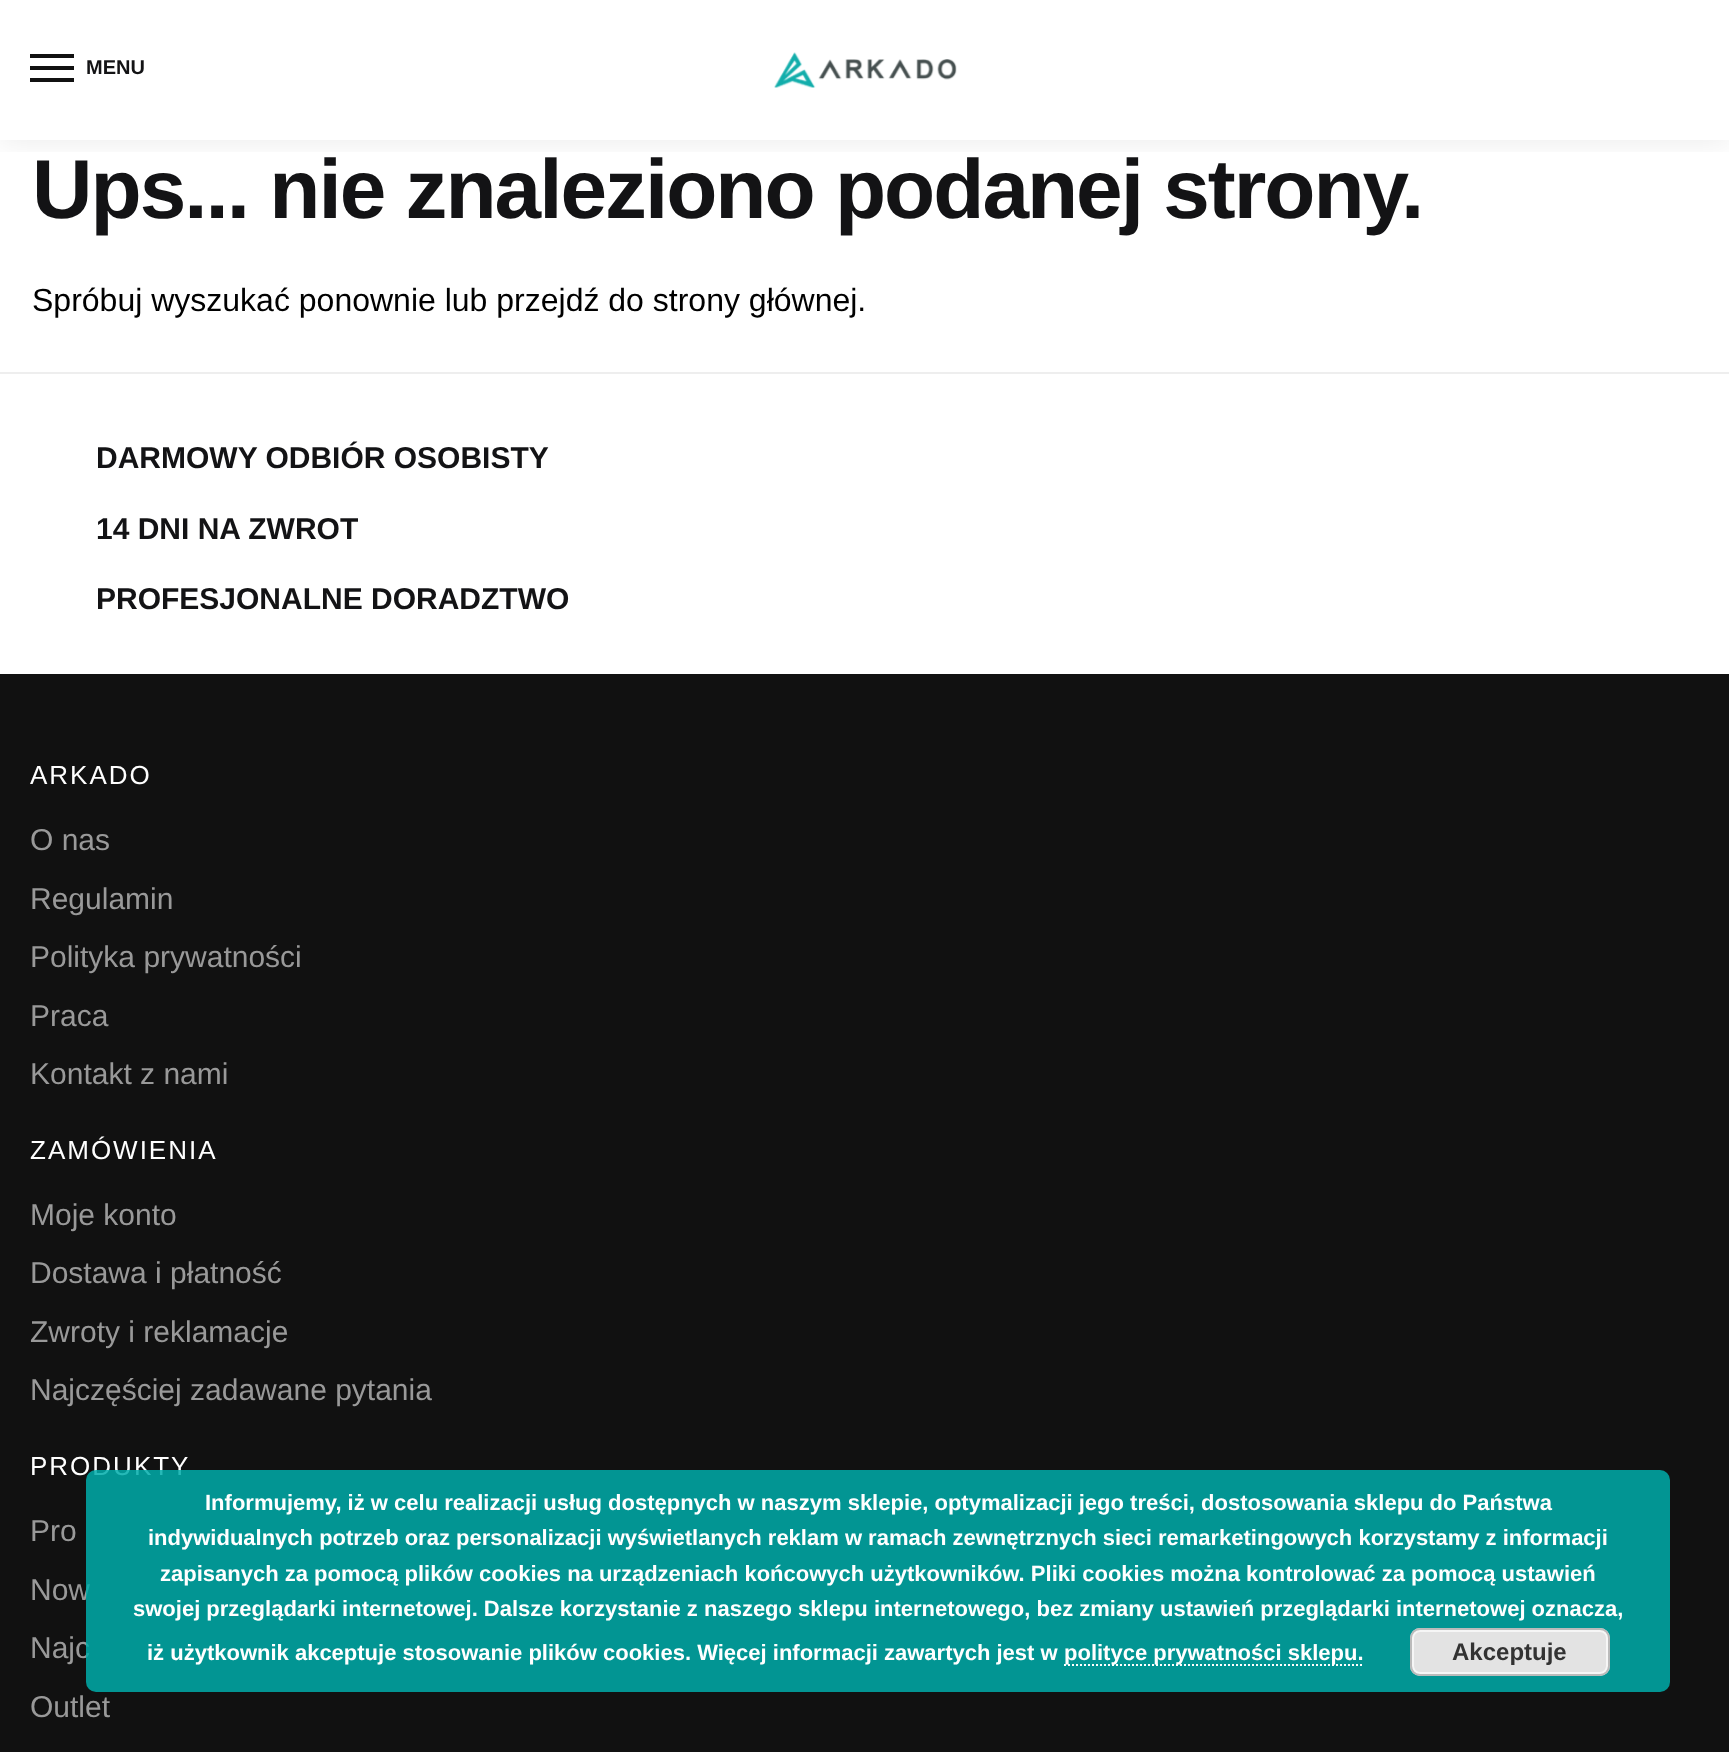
<!DOCTYPE html>
<meta charset="utf-8">
<style>body { margin: 0 } canvas { display: block }</style>
<canvas id="canvas" width="1729" height="1752"></canvas>
<script type="module">
  const canvas = document.getElementById("canvas");
  const ctx = canvas.getContext("2d");
  ctx.miterLimit = 4;
  ctx.fontKerning = "normal";
  async function loadImage(src) {
    const img = new Image();
    img.src = src;
    await img.decode();
    return img;
  }

  ctx.fillStyle = "#ffffff";
  ctx.fillRect(0, 0, 1729, 1752);
  ctx.save();
  ctx.beginPath();
  ctx.rect(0, 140, 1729, 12);
  ctx.clip();
  ctx.fillStyle = "rgba(0, 0, 0, 0.08)";
  ctx.filter = "blur(15px)";
  ctx.beginPath();
  ctx.rect(0, 2, 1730, 140);
  ctx.fill();
  ctx.filter = "none";
  ctx.restore();
  ctx.fillStyle = "#111111";
  ctx.fillRect(30, 54, 44, 4);
  ctx.fillRect(30, 66, 44, 4);
  ctx.font = "bold 20px Liberation Sans";
  ctx.fillStyle = "#131315";
  ctx.fillText("MENU", 86, 74);
  ctx.fillStyle = "#111111";
  ctx.fillRect(30, 78, 44, 4);
  ctx.drawImage(await loadImage("img1.png"), 774, 52, 183, 36);
  ctx.letterSpacing = "-2px";
  ctx.font = "bold 83.75px Liberation Sans";
  ctx.fillStyle = "#131315";
  ctx.fillText("Ups... nie znaleziono podanej strony.", 32, 218);
  ctx.letterSpacing = "0px";
  ctx.font = "32px Liberation Sans";
  ctx.fillStyle = "#000000";
  ctx.fillText("Spróbuj wyszukać ponownie lub przejdź do strony głównej.", 32, 311);
  ctx.fillStyle = "#eeeeee";
  ctx.fillRect(0, 372, 1729, 2);
  ctx.font = "bold 30px Liberation Sans";
  ctx.fillStyle = "#131315";
  ctx.fillText("DARMOWY ODBIÓR OSOBISTY", 96, 468);
  ctx.fillText("14 DNI NA ZWROT", 96, 539);
  ctx.fillText("PROFESJONALNE DORADZTWO", 96, 609);
  ctx.fillStyle = "#111111";
  ctx.fillRect(0, 674, 1729, 1078);
  ctx.letterSpacing = "2px";
  ctx.font = "26px Liberation Sans";
  ctx.fillStyle = "#ffffff";
  ctx.fillText("ARKADO", 30, 784);
  ctx.letterSpacing = "0px";
  ctx.font = "30px Liberation Sans";
  ctx.fillStyle = "#999999";
  ctx.fillText("O nas", 30, 850);
  ctx.fillText("Regulamin", 30, 909);
  ctx.fillText("Polityka prywatności", 30, 967);
  ctx.fillText("Praca", 30, 1026);
  ctx.fillText("Kontakt z nami", 30, 1084);
  ctx.letterSpacing = "2px";
  ctx.font = "26px Liberation Sans";
  ctx.fillStyle = "#ffffff";
  ctx.fillText("ZAMÓWIENIA", 30, 1159);
  ctx.letterSpacing = "0px";
  ctx.font = "30px Liberation Sans";
  ctx.fillStyle = "#999999";
  ctx.fillText("Moje konto", 30, 1225);
  ctx.fillText("Dostawa i płatność", 30, 1283);
  ctx.fillText("Zwroty i reklamacje", 30, 1342);
  ctx.fillText("Najczęściej zadawane pytania", 30, 1400);
  ctx.letterSpacing = "2px";
  ctx.font = "26px Liberation Sans";
  ctx.fillStyle = "#ffffff";
  ctx.fillText("PRODUKTY", 30, 1475);
  ctx.letterSpacing = "0px";
  ctx.font = "30px Liberation Sans";
  ctx.fillStyle = "#999999";
  ctx.fillText("Pro", 30, 1541);
  ctx.fillText("Now", 30, 1600);
  ctx.fillText("Najc", 30, 1658);
  ctx.fillText("Outlet", 30, 1717);
  ctx.fillStyle = "rgba(0, 173, 170, 0.85)";
  ctx.beginPath();
  ctx.roundRect(86, 1470, 1584, 222, 10);
  ctx.fill();
  ctx.font = "bold 22px Liberation Sans";
  ctx.fillStyle = "#ffffff";
  ctx.fillText("Informujemy, iż w celu realizacji usług dostępnych w naszym sklepie, optymalizacji jego treści, dostosowania sklepu do Państwa", 205, 1510);
  ctx.fillText("indywidualnych potrzeb oraz personalizacji wyświetlanych reklam w ramach zewnętrznych sieci remarketingowych korzystamy z informacji", 148, 1545);
  ctx.fillText("zapisanych za pomocą plików cookies na urządzeniach końcowych użytkowników. Pliki cookies można kontrolować za pomocą ustawień", 160, 1581);
  ctx.fillText("swojej przeglądarki internetowej. Dalsze korzystanie z naszego sklepu internetowego, bez zmiany ustawień przeglądarki internetowej oznacza,", 133, 1616);
  ctx.fillText("iż użytkownik akceptuje stosowanie plików cookies. Więcej informacji zawartych jest w", 147, 1660);
  ctx.beginPath();
  ctx.moveTo(1064, 1665);
  ctx.lineTo(1364, 1665);
  ctx.strokeStyle = "#ffffff";
  ctx.lineWidth = 2;
  ctx.setLineDash([2, 2]);
  ctx.stroke();
  ctx.fillText("polityce prywatności sklepu.", 1064, 1660);
  ctx.fillStyle = "#e3e3e3";
  ctx.beginPath();
  ctx.roundRect(1410, 1628, 200, 48, 10);
  ctx.fill();
  ctx.beginPath();
  ctx.roundRect(1413, 1631, 194, 42, 7);
  ctx.strokeStyle = "#f6f6f6";
  ctx.setLineDash([]);
  ctx.stroke();
  ctx.beginPath();
  ctx.roundRect(1411, 1629, 198, 46, 9);
  ctx.strokeStyle = "#bbbbbb";
  ctx.stroke();
  ctx.font = "bold 24px Liberation Sans";
  ctx.fillStyle = "#333333";
  ctx.fillText("Akceptuje", 1452, 1660);
</script>
